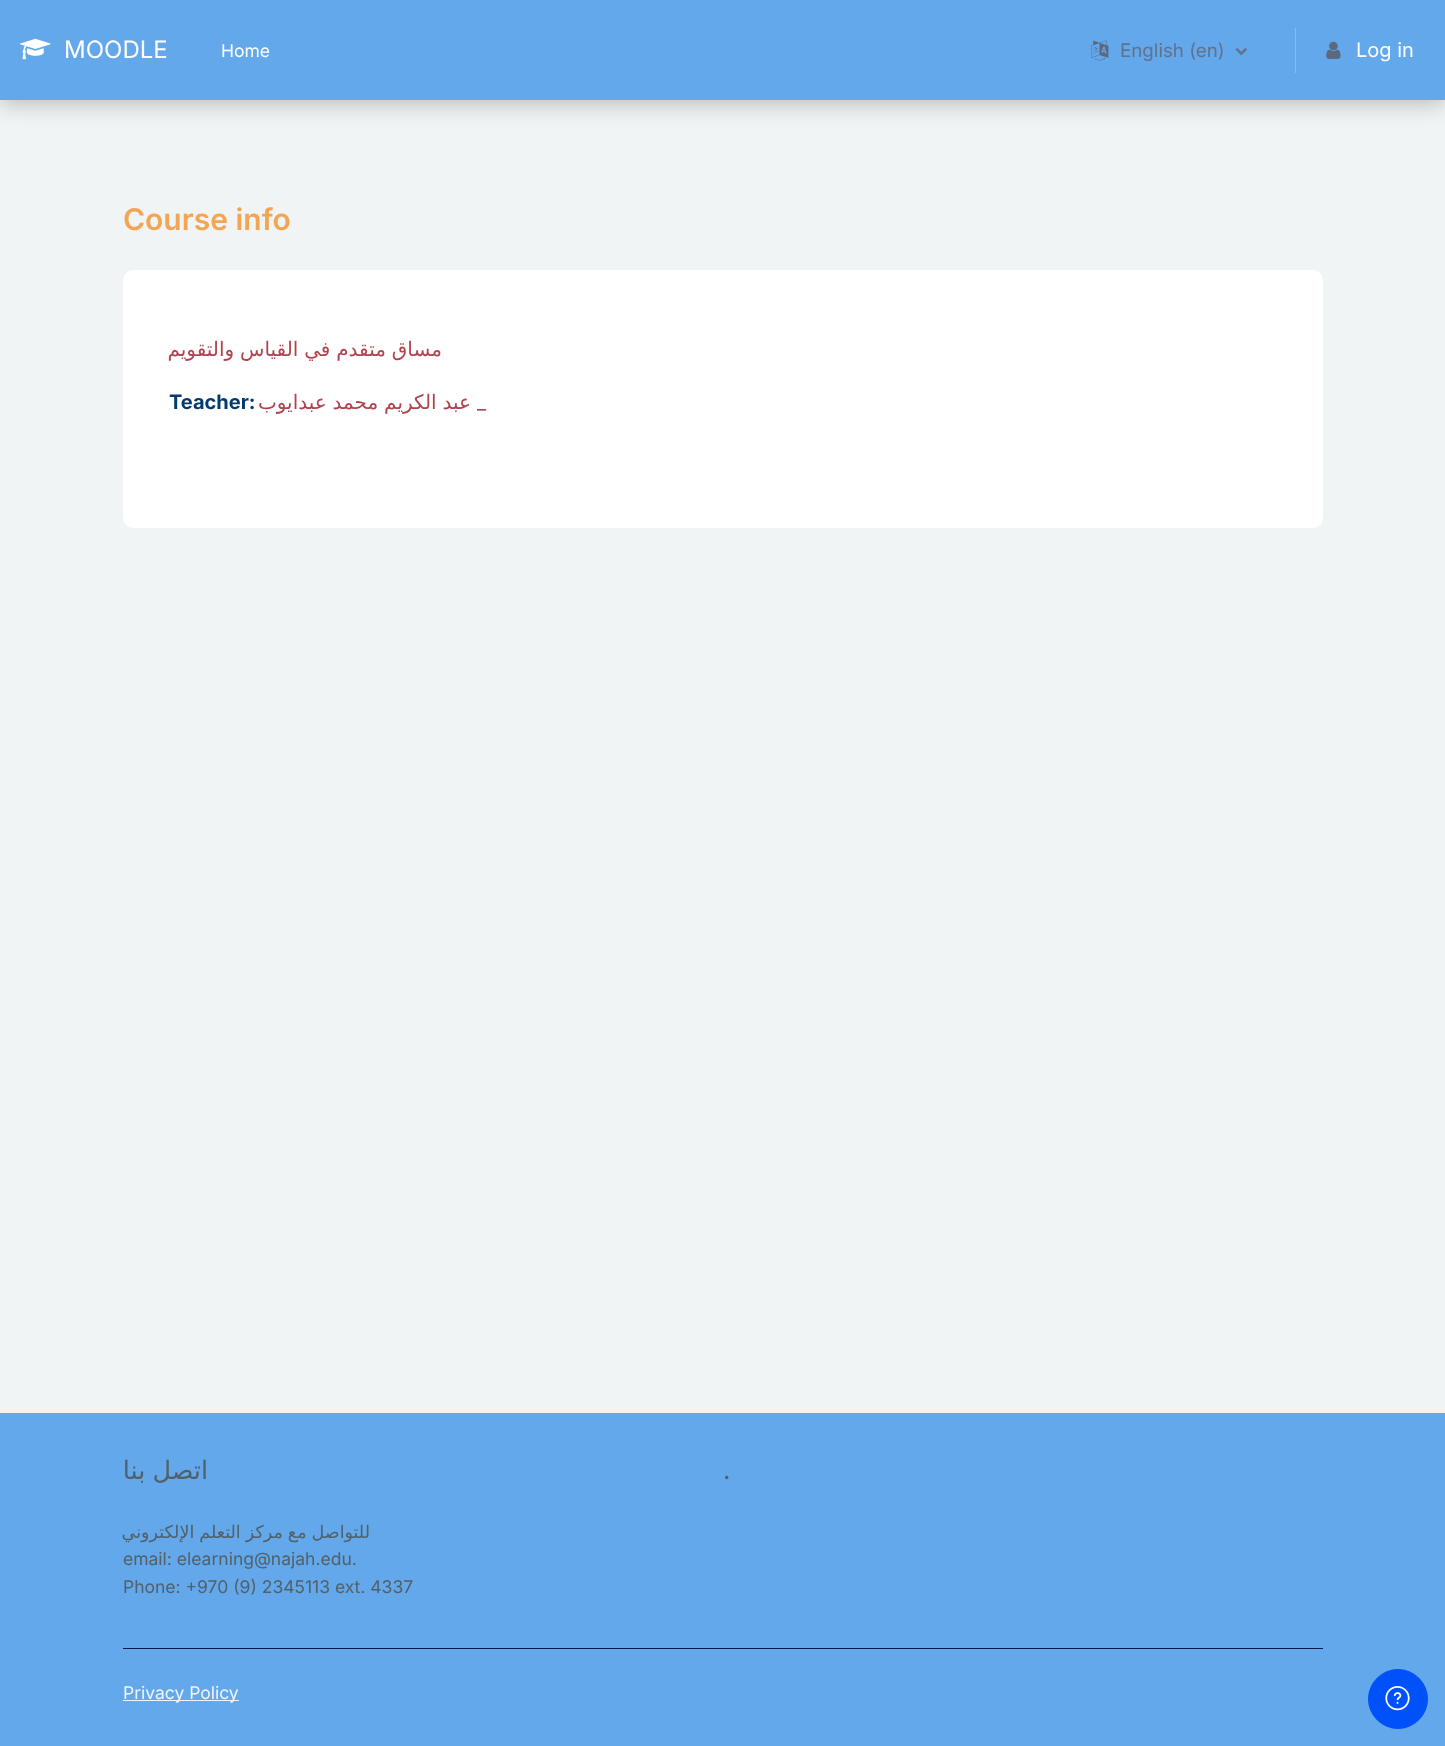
<!DOCTYPE html>
<meta charset="utf-8">
<style>body { margin: 0 } canvas { display: block }</style>
<canvas id="canvas" width="1445" height="1746"></canvas>
<script type="module">
  const canvas = document.getElementById("canvas");
  const ctx = canvas.getContext("2d");
  ctx.miterLimit = 4;
  ctx.fontKerning = "normal";
  async function loadImage(src) {
    const img = new Image();
    img.src = src;
    await img.decode();
    return img;
  }

  ctx.fillStyle = "#62a8ea";
  ctx.fillRect(0, 0, 1445, 1746);
  ctx.fillStyle = "#f1f4f5";
  ctx.fillRect(0, 100, 1445, 1313);
  ctx.fillStyle = "rgba(0, 0, 0, 0.25)";
  ctx.filter = "blur(11px)";
  ctx.beginPath();
  ctx.rect(0, 3, 1445, 100);
  ctx.fill();
  ctx.filter = "none";
  ctx.fillStyle = "#62a8ea";
  ctx.fillRect(0, 0, 1445, 100);
  ctx.drawImage(await loadImage("img1.png"), 20, 38, 31, 22);
  ctx.font = "24px Inter";
  ctx.fillStyle = "#ffffff";
  ctx.fillText("MOODLE", 64, 58);
  ctx.font = "17.5px Inter";
  ctx.fillText("Home", 221, 57);
  ctx.drawImage(await loadImage("img2.png"), 1091, 40, 18, 21);
  ctx.font = "18.75px Inter";
  ctx.fillStyle = "#63718c";
  ctx.fillText("English (en)", 1120, 57);
  ctx.drawImage(await loadImage("img3.png"), 1235, 48, 12, 8);
  ctx.fillStyle = "#9cb6d2";
  ctx.fillRect(1295, 28, 1, 45);
  ctx.drawImage(await loadImage("img4.png"), 1326, 41, 15, 18);
  ctx.font = "20px Inter";
  ctx.fillStyle = "#ffffff";
  ctx.fillText("Log in", 1356, 57);
  ctx.font = "600 30px Inter";
  ctx.fillStyle = "#f2a654";
  ctx.fillText("Course info", 123, 230);
  ctx.fillStyle = "#ffffff";
  ctx.beginPath();
  ctx.roundRect(123, 270, 1200, 258, 10);
  ctx.fill();
  ctx.wordSpacing = "-0.5px";
  ctx.direction = "rtl";
  ctx.font = "20px DejaVu Sans";
  ctx.fillStyle = "#b1434d";
  ctx.fillText("مساق متقدم في القياس والتقويم", 442, 356);
  ctx.wordSpacing = "0px";
  ctx.direction = "ltr";
  ctx.font = "bold 20px Inter";
  ctx.fillStyle = "#043b6e";
  ctx.fillText("Teacher:", 169, 409);
  ctx.wordSpacing = "-0.5px";
  ctx.direction = "rtl";
  ctx.font = "20px DejaVu Sans";
  ctx.fillStyle = "#b1434d";
  ctx.fillText("عبد الكريم محمد عبدايوب", 471, 409);
  ctx.wordSpacing = "0px";
  ctx.direction = "ltr";
  ctx.font = "20px Inter";
  ctx.fillText("_", 477, 409);
  ctx.wordSpacing = "-1px";
  ctx.direction = "rtl";
  ctx.font = "25.5px DejaVu Sans";
  ctx.fillStyle = "#526069";
  ctx.fillText("اتصل بنا", 208, 1479);
  ctx.wordSpacing = "-0.5px";
  ctx.font = "17.5px DejaVu Sans";
  ctx.fillText("للتواصل مع مركز التعلم الإلكتروني", 370, 1538);
  ctx.wordSpacing = "0px";
  ctx.direction = "ltr";
  ctx.font = "17.5px Inter";
  ctx.fillText("email: elearning@najah.edu.", 123, 1565);
  ctx.fillText("Phone: +970 (9) 2345113 ext. 4337", 123, 1593);
  ctx.font = "25.5px Inter";
  ctx.fillText(".", 723, 1479);
  ctx.fillStyle = "#00184b";
  ctx.fillRect(123, 1648, 1200, 1);
  ctx.fillStyle = "#f1f4f5";
  ctx.fillRect(123, 1700, 116, 1);
  ctx.font = "17.5px Inter";
  ctx.fillText("Privacy Policy", 123, 1699);
  ctx.fillStyle = "#0051f9";
  ctx.beginPath();
  ctx.arc(1398, 1699, 29.5, 0, Math.PI * 2);
  ctx.fill();
  ctx.strokeStyle = "#0051f9";
  ctx.stroke();
  ctx.drawImage(await loadImage("img5.png"), 1385, 1686, 25, 25);
</script>
